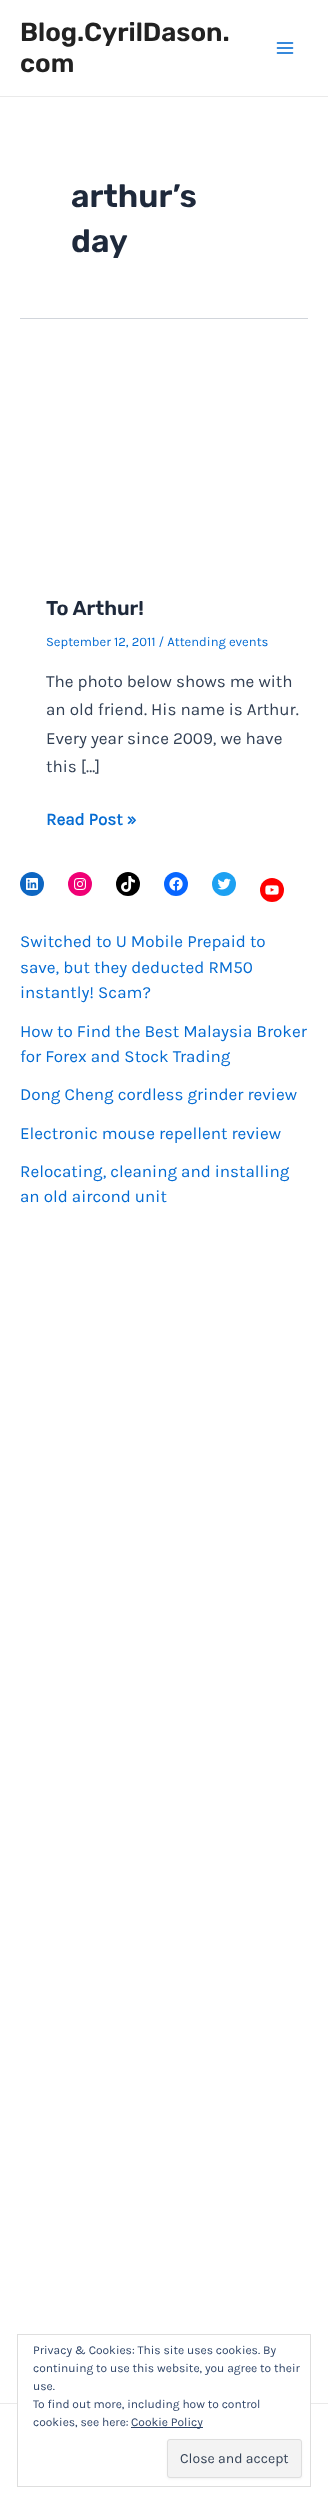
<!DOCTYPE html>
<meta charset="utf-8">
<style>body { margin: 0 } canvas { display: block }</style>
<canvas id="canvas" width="328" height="2504"></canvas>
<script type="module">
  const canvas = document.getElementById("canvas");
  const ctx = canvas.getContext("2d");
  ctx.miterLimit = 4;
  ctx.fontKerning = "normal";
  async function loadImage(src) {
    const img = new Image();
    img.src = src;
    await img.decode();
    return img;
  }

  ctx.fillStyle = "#ffffff";
  ctx.fillRect(0, 0, 328, 2504);
  ctx.fillStyle = "#eaeaea";
  ctx.fillRect(0, 96, 328, 1);
  ctx.font = "600 26px Rubik";
  ctx.fillStyle = "#222222";
  ctx.fillText("Blog.CyrilDason.", 20, 41);
  ctx.fillText("com", 20, 72);
  ctx.drawImage(await loadImage("img1.png"), 276, 42, 18, 12);
  ctx.fillStyle = "#d1d5db";
  ctx.fillRect(20, 318, 288, 1);
  ctx.font = "600 32px Rubik";
  ctx.fillStyle = "#1e293b";
  ctx.fillText("arthur’s", 71, 207);
  ctx.fillText("day", 71, 252);
  ctx.font = "600 20px Rubik";
  ctx.fillText("To Arthur!", 46, 615);
  ctx.font = "13px Karla";
  ctx.fillStyle = "#046bd2";
  ctx.fillText("September 12, 2011 / Attending events", 46, 646);
  ctx.font = "17px Karla";
  ctx.fillStyle = "#334155";
  ctx.fillText("The photo below shows me with", 46, 687);
  ctx.fillText("an old friend. His name is Arthur.", 46, 715);
  ctx.fillText("Every year since 2009, we have", 46, 744);
  ctx.fillText("this […]", 46, 772);
  ctx.font = "bold 17px Karla";
  ctx.fillStyle = "#046bd2";
  ctx.fillText("Read Post »", 46, 825);
  ctx.fillStyle = "#0d66c2";
  ctx.beginPath();
  ctx.arc(32, 884, 12, 0, Math.PI * 2);
  ctx.fill();
  ctx.drawImage(await loadImage("img2.png"), 26, 878, 12, 12);
  ctx.fillStyle = "#f00075";
  ctx.beginPath();
  ctx.arc(80, 884, 12, 0, Math.PI * 2);
  ctx.fill();
  ctx.drawImage(await loadImage("img3.png"), 74, 878, 12, 12);
  ctx.fillStyle = "#000000";
  ctx.beginPath();
  ctx.arc(128, 884, 12, 0, Math.PI * 2);
  ctx.fill();
  ctx.drawImage(await loadImage("img4.png"), 121, 876, 14, 16);
  ctx.fillStyle = "#0866ff";
  ctx.beginPath();
  ctx.arc(176, 884, 12, 0, Math.PI * 2);
  ctx.fill();
  ctx.drawImage(await loadImage("img5.png"), 169, 877, 14, 14);
  ctx.fillStyle = "#1da1f2";
  ctx.beginPath();
  ctx.arc(224, 884, 12, 0, Math.PI * 2);
  ctx.fill();
  ctx.drawImage(await loadImage("img6.png"), 217, 878, 14, 12);
  ctx.fillStyle = "#ff0000";
  ctx.beginPath();
  ctx.arc(272, 890, 12, 0, Math.PI * 2);
  ctx.fill();
  ctx.drawImage(await loadImage("img7.png"), 265, 885, 14, 10);
  ctx.font = "17px Karla";
  ctx.fillStyle = "#046bd2";
  ctx.fillText("Switched to U Mobile Prepaid to", 20, 947);
  ctx.fillText("save, but they deducted RM50", 20, 973);
  ctx.fillText("instantly! Scam?", 20, 998);
  ctx.fillText("How to Find the Best Malaysia Broker", 20, 1037);
  ctx.fillText("for Forex and Stock Trading", 20, 1062);
  ctx.fillText("Dong Cheng cordless grinder review", 20, 1100);
  ctx.fillText("Electronic mouse repellent review", 20, 1139);
  ctx.fillText("Relocating, cleaning and installing", 20, 1177);
  ctx.fillText("an old aircond unit", 20, 1202);
  ctx.fillStyle = "#eaeaea";
  ctx.fillRect(0, 2403, 328, 1);
  ctx.fillStyle = "#ffffff";
  ctx.fillRect(18, 2403, 292, 1);
  ctx.strokeStyle = "#dedede";
  ctx.strokeRect(17.5, 2334.5, 293, 152);
  ctx.font = "12px Karla";
  ctx.fillStyle = "#2e4467";
  ctx.fillText("Privacy & Cookies: This site uses cookies. By", 33, 2354);
  ctx.fillText("continuing to use this website, you agree to their", 33, 2372);
  ctx.fillText("use.", 33, 2390);
  ctx.fillText("To find out more, including how to control", 33, 2408);
  ctx.fillText("cookies, see here:", 33, 2426);
  ctx.fillRect(131, 2427, 72, 1);
  ctx.fillText("Cookie Policy", 131, 2426);
  ctx.fillStyle = "rgba(0, 0, 0, 0.05)";
  ctx.filter = "blur(1px)";
  ctx.beginPath();
  ctx.roundRect(167, 2440, 135, 39, 3);
  ctx.fill();
  ctx.filter = "none";
  ctx.fillStyle = "#f3f3f3";
  ctx.beginPath();
  ctx.roundRect(167.5, 2439.5, 134, 38, 2.5);
  ctx.fill();
  ctx.stroke();
  ctx.font = "14px Karla";
  ctx.fillStyle = "#334155";
  ctx.fillText("Close and accept", 180, 2463);
</script>
